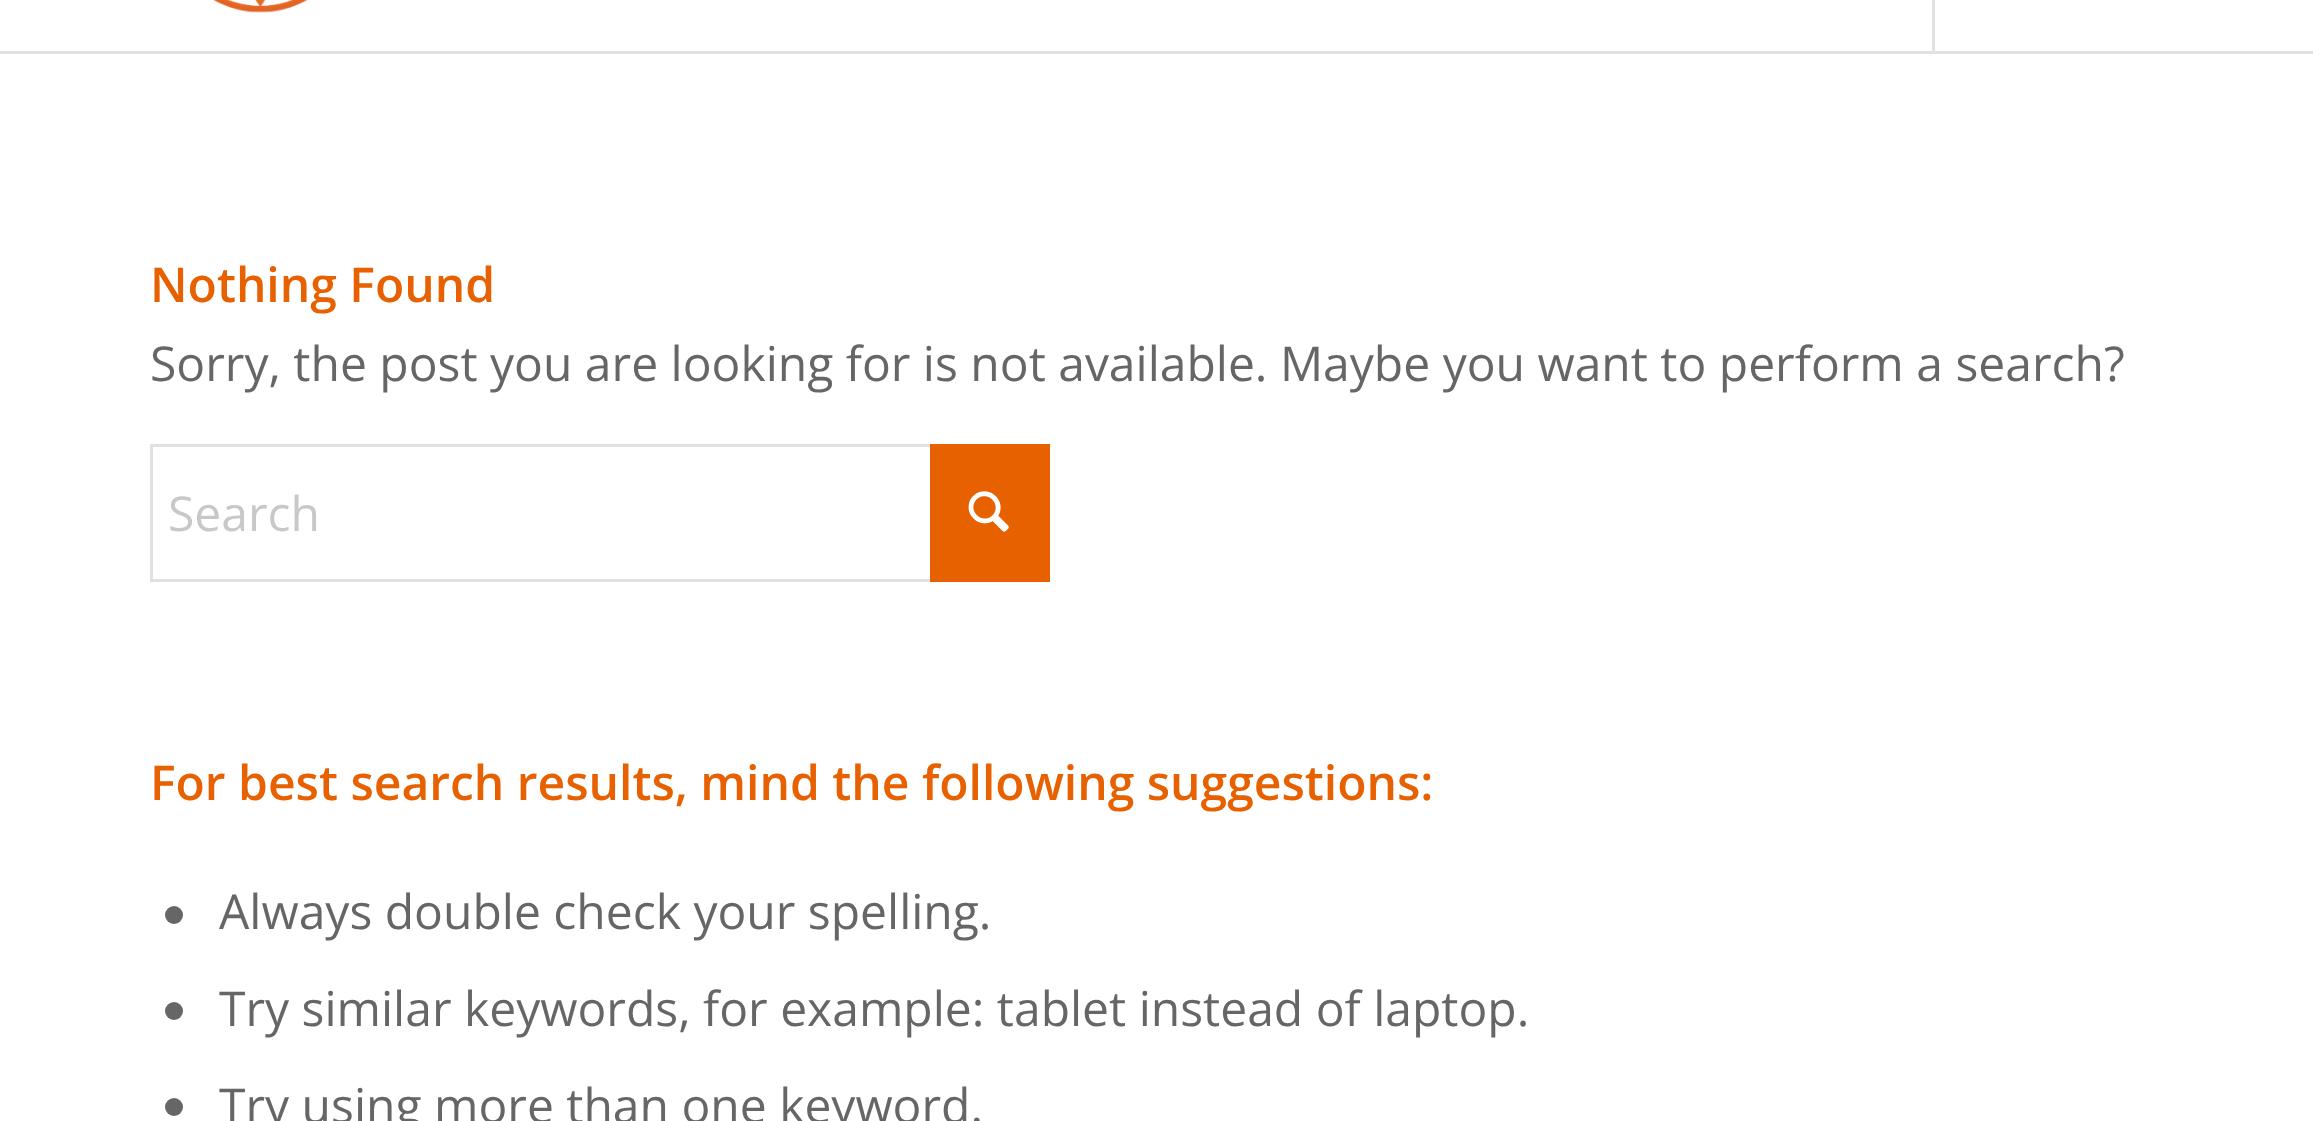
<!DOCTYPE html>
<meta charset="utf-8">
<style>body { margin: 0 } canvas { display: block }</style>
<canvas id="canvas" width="2313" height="1121"></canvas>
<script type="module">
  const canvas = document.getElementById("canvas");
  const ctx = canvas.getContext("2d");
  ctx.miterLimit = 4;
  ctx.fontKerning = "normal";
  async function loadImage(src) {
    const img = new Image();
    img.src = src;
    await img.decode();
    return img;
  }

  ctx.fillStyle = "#ffffff";
  ctx.fillRect(0, 0, 2313, 1121);
  ctx.fillStyle = "#e1e1e1";
  ctx.fillRect(0, 51, 2313, 3);
  ctx.drawImage(await loadImage("img1.png"), 213, 0, 95, 13);
  ctx.fillRect(1932, 0, 3, 51);
  ctx.font = "600 48px Open Sans";
  ctx.fillStyle = "#e86100";
  ctx.fillText("Nothing Found", 150, 302);
  ctx.font = "48px Open Sans";
  ctx.fillStyle = "#666666";
  ctx.fillText("Sorry, the post you are looking for is not available. Maybe you want to perform a search?", 150, 381);
  ctx.strokeStyle = "#e1e1e1";
  ctx.lineWidth = 3;
  ctx.strokeRect(151.5, 445.5, 897, 135);
  ctx.fillStyle = "#e86100";
  ctx.fillRect(930, 444, 120, 138);
  ctx.fillStyle = "#c8c8c8";
  ctx.fillText("Search", 168, 531);
  ctx.drawImage(await loadImage("img2.png"), 968, 491, 41, 41);
  ctx.font = "600 48px Open Sans";
  ctx.fillStyle = "#e86100";
  ctx.fillText("For best search results, mind the following suggestions:", 150, 800);
  ctx.fillStyle = "#666666";
  ctx.beginPath();
  ctx.arc(174, 915, 9, 0, Math.PI * 2);
  ctx.fill();
  ctx.font = "48px Open Sans";
  ctx.fillText("Always double check your spelling.", 219, 929);
  ctx.beginPath();
  ctx.arc(174, 1011, 9, 0, Math.PI * 2);
  ctx.fill();
  ctx.fillText("Try similar keywords, for example: tablet instead of laptop.", 219, 1026);
  ctx.beginPath();
  ctx.arc(174, 1107, 9, 0, Math.PI * 2);
  ctx.fill();
  ctx.fillText("Try using more than one keyword.", 219, 1123);
</script>
